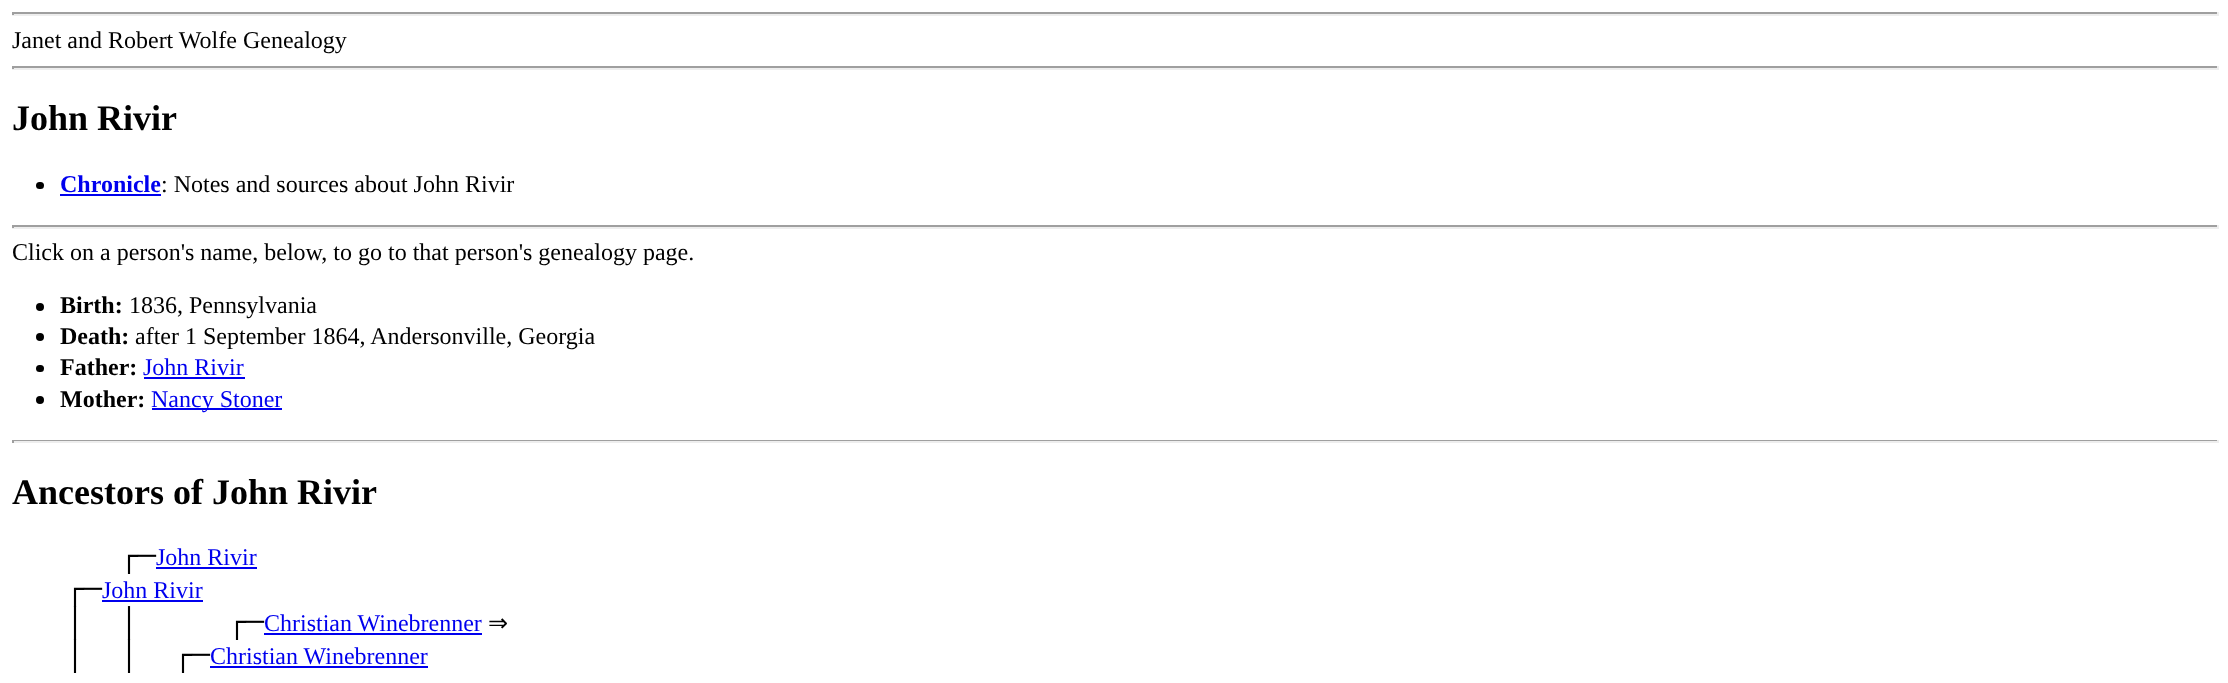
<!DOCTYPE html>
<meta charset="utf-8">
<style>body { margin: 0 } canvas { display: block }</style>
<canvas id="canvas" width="2228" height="683"></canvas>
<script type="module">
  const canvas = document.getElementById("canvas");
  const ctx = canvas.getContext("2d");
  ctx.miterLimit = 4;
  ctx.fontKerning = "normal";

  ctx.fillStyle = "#ffffff";
  ctx.fillRect(0, 0, 2228, 683);
  ctx.fillStyle = "#9f9f9f";
  ctx.fillRect(12, 12, 2207, 2);
  ctx.fillStyle = "#eeeeee";
  ctx.fillRect(2217, 12, 2, 3);
  ctx.fillRect(12, 14, 2207, 2);
  ctx.fillStyle = "#9f9f9f";
  ctx.fillRect(12, 12, 2, 3);
  ctx.font = "24px Liberation Serif";
  ctx.fillStyle = "#000000";
  ctx.fillText("Janet and Robert Wolfe Genealogy", 12, 48);
  ctx.fillStyle = "#9f9f9f";
  ctx.fillRect(12, 66, 2207, 2);
  ctx.fillStyle = "#eeeeee";
  ctx.fillRect(2217, 66, 2, 3);
  ctx.fillRect(12, 68, 2207, 2);
  ctx.fillStyle = "#9f9f9f";
  ctx.fillRect(12, 66, 2, 3);
  ctx.font = "bold 36px Liberation Serif";
  ctx.fillStyle = "#000000";
  ctx.fillText("John Rivir", 12, 130);
  ctx.beginPath();
  ctx.roundRect(36, 182, 8, 7, 3.5);
  ctx.fill();
  ctx.font = "bold 24px Liberation Serif";
  ctx.fillStyle = "#0000ee";
  ctx.fillText("Chronicle", 60, 192);
  ctx.fillRect(60, 194, 101, 2);
  ctx.font = "24px Liberation Serif";
  ctx.fillStyle = "#000000";
  ctx.fillText(": Notes and sources about John Rivir", 161, 192);
  ctx.fillStyle = "#9f9f9f";
  ctx.fillRect(12, 225, 2207, 2);
  ctx.fillStyle = "#eeeeee";
  ctx.fillRect(2217, 225, 2, 3);
  ctx.fillRect(12, 227, 2207, 2);
  ctx.fillStyle = "#9f9f9f";
  ctx.fillRect(12, 225, 2, 3);
  ctx.fillStyle = "#000000";
  ctx.fillText("Click on a person's name, below, to go to that person's genealogy page.", 12, 260);
  ctx.beginPath();
  ctx.arc(40, 307, 4, 0, Math.PI * 2);
  ctx.fill();
  ctx.font = "bold 24px Liberation Serif";
  ctx.fillText("Birth:", 60, 313);
  ctx.font = "24px Liberation Serif";
  ctx.fillText("1836, Pennsylvania", 129, 313);
  ctx.beginPath();
  ctx.arc(40, 337, 4, 0, Math.PI * 2);
  ctx.fill();
  ctx.font = "bold 24px Liberation Serif";
  ctx.fillText("Death:", 60, 344);
  ctx.font = "24px Liberation Serif";
  ctx.fillText("after 1 September 1864, Andersonville, Georgia", 135, 344);
  ctx.beginPath();
  ctx.roundRect(36, 365, 8, 7, 3.5);
  ctx.fill();
  ctx.font = "bold 24px Liberation Serif";
  ctx.fillText("Father:", 60, 375);
  ctx.font = "24px Liberation Serif";
  ctx.fillStyle = "#0000ee";
  ctx.fillText("John Rivir", 143, 375);
  ctx.fillRect(144, 377, 101, 2);
  ctx.fillStyle = "#000000";
  ctx.beginPath();
  ctx.arc(40, 400, 4, 0, Math.PI * 2);
  ctx.fill();
  ctx.font = "bold 24px Liberation Serif";
  ctx.fillText("Mother:", 60, 407);
  ctx.fillStyle = "#0000ee";
  ctx.fillRect(152, 408, 130, 2);
  ctx.font = "24px Liberation Serif";
  ctx.fillText("Nancy Stoner", 151, 407);
  ctx.fillStyle = "#9f9f9f";
  ctx.fillRect(12, 440, 2207, 1);
  ctx.fillStyle = "#eeeeee";
  ctx.fillRect(2217, 440, 2, 3);
  ctx.fillRect(12, 441, 2207, 2);
  ctx.fillStyle = "#9f9f9f";
  ctx.fillRect(12, 440, 2, 3);
  ctx.font = "bold 36px Liberation Serif";
  ctx.fillStyle = "#000000";
  ctx.fillText("Ancestors of John Rivir", 12, 504);
  ctx.font = "30px Liberation Mono";
  ctx.fillText("┌─", 120, 565);
  ctx.font = "24px Liberation Serif";
  ctx.fillStyle = "#0000ee";
  ctx.fillText("John Rivir", 156, 565);
  ctx.fillRect(156, 567, 101, 2);
  ctx.font = "30px Liberation Mono";
  ctx.fillStyle = "#000000";
  ctx.fillText("┌─", 66, 598);
  ctx.font = "24px Liberation Serif";
  ctx.fillStyle = "#0000ee";
  ctx.fillText("John Rivir", 102, 598);
  ctx.fillRect(102, 600, 101, 2);
  ctx.font = "30px Liberation Mono";
  ctx.fillStyle = "#000000";
  ctx.fillText("│  │     ┌─", 66, 631);
  ctx.font = "24px Liberation Serif";
  ctx.fillStyle = "#0000ee";
  ctx.fillText("Christian Winebrenner", 264, 631);
  ctx.fillRect(264, 633, 218, 2);
  ctx.font = "24px DejaVu Sans";
  ctx.fillStyle = "#000000";
  ctx.fillText("⇒", 488, 631);
  ctx.font = "30px Liberation Mono";
  ctx.fillText("│  │  ┌─", 66, 664);
  ctx.font = "24px Liberation Serif";
  ctx.fillStyle = "#0000ee";
  ctx.fillText("Christian Winebrenner", 210, 664);
  ctx.fillRect(210, 666, 218, 2);
</script>
